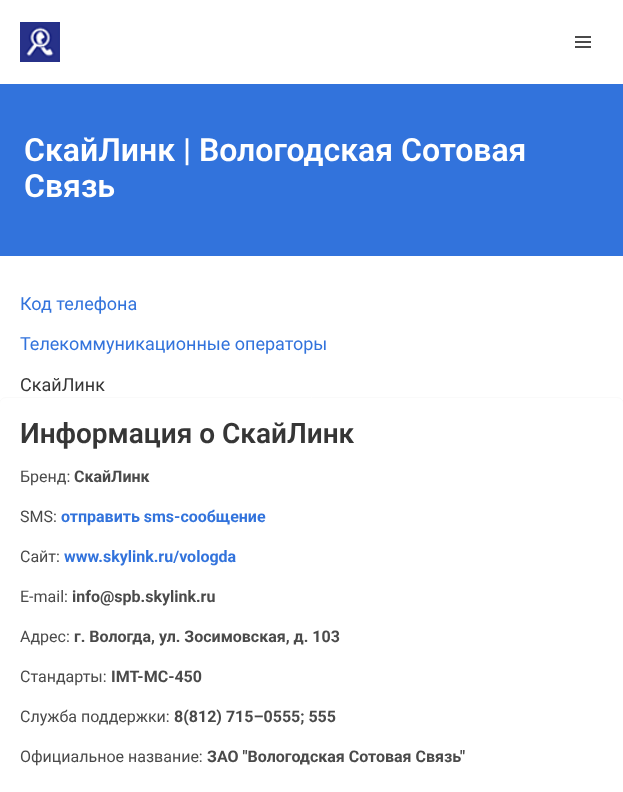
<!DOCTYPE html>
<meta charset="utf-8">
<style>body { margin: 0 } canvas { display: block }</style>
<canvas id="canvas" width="623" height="792"></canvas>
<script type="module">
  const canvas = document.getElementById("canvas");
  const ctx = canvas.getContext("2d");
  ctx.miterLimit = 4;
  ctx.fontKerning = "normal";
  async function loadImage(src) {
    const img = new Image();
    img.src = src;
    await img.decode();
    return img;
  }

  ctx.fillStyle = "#ffffff";
  ctx.fillRect(0, 0, 623, 792);
  ctx.drawImage(await loadImage("img1.png"), 20, 22, 40, 40);
  ctx.fillStyle = "#4a4a4a";
  ctx.fillRect(575, 36, 16, 2);
  ctx.fillRect(575, 41, 16, 2);
  ctx.fillRect(575, 46, 16, 2);
  ctx.fillStyle = "#3273dc";
  ctx.fillRect(0, 84, 623, 172);
  ctx.font = "600 32px Roboto";
  ctx.fillStyle = "#ffffff";
  ctx.fillText("СкайЛинк | Вологодская Сотовая", 24, 161);
  ctx.fillText("Связь", 24, 197);
  ctx.font = "18px Roboto";
  ctx.fillStyle = "#3273dc";
  ctx.fillText("Код телефона", 20, 310);
  ctx.fillText("Телекоммуникационные операторы", 20, 350);
  ctx.fillStyle = "#363636";
  ctx.fillText("СкайЛинк", 20, 391);
  ctx.beginPath();
  ctx.roundRect(-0.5, 397.5, 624, 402, 6.5);
  ctx.strokeStyle = "#fafafa";
  ctx.stroke();
  ctx.font = "600 28px Roboto";
  ctx.fillText("Информация о СкайЛинк", 20, 443);
  ctx.font = "16px Roboto";
  ctx.fillStyle = "#4a4a4a";
  ctx.fillText("Бренд:", 20, 482);
  ctx.font = "bold 16px Roboto";
  ctx.fillText("СкайЛинк", 74, 482);
  ctx.font = "16px Roboto";
  ctx.fillText("SMS:", 20, 522);
  ctx.font = "bold 16px Roboto";
  ctx.fillStyle = "#3273dc";
  ctx.fillText("отправить sms-сообщение", 61, 522);
  ctx.font = "16px Roboto";
  ctx.fillStyle = "#4a4a4a";
  ctx.fillText("Сайт:", 20, 562);
  ctx.font = "bold 16px Roboto";
  ctx.fillStyle = "#3273dc";
  ctx.fillText("www.skylink.ru/vologda", 64, 562);
  ctx.font = "16px Roboto";
  ctx.fillStyle = "#4a4a4a";
  ctx.fillText("E-mail:", 20, 602);
  ctx.font = "bold 16px Roboto";
  ctx.fillText("info@spb.skylink.ru", 72, 602);
  ctx.font = "16px Roboto";
  ctx.fillText("Адрес:", 20, 642);
  ctx.font = "bold 16px Roboto";
  ctx.fillText("г. Вологда, ул. Зосимовская, д. 103", 74, 642);
  ctx.font = "16px Roboto";
  ctx.fillText("Стандарты:", 20, 682);
  ctx.font = "bold 16px Roboto";
  ctx.fillText("IMT-MC-450", 111, 682);
  ctx.font = "16px Roboto";
  ctx.fillText("Служба поддержки:", 20, 722);
  ctx.font = "bold 16px Roboto";
  ctx.fillText("8(812) 715–0555; 555", 174, 722);
  ctx.font = "16px Roboto";
  ctx.fillText("Официальное название:", 20, 762);
  ctx.font = "bold 16px Roboto";
  ctx.fillText("ЗАО \"Вологодская Сотовая Связь\"", 207, 762);
</script>
